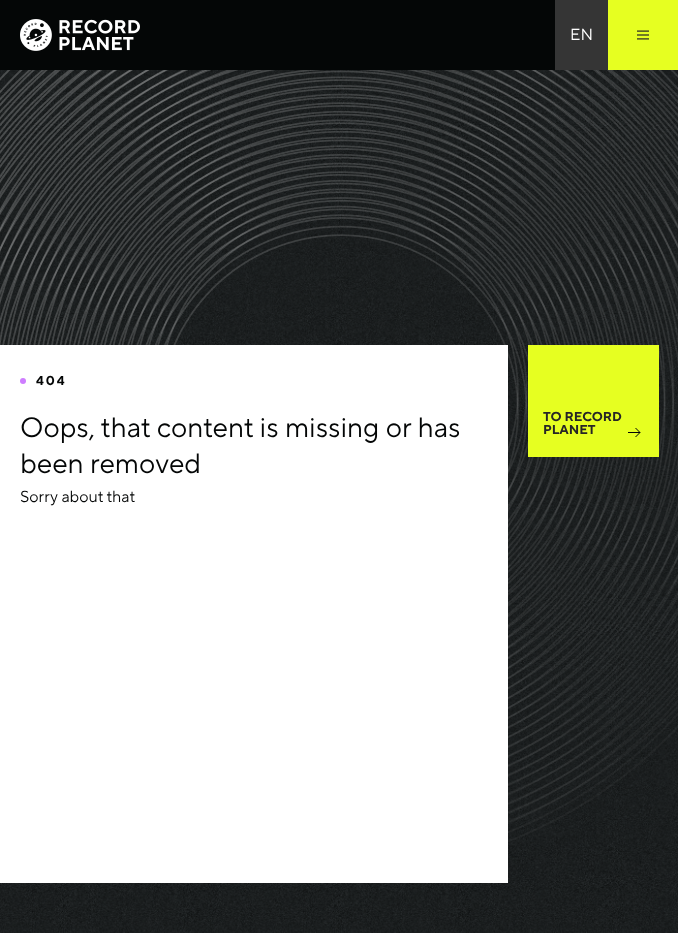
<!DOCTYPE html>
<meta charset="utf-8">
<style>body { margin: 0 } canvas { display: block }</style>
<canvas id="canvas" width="678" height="933"></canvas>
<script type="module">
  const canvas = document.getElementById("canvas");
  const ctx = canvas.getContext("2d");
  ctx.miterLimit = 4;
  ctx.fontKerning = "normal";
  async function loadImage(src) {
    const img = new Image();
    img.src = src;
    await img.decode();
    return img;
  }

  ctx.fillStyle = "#ffffff";
  ctx.fillRect(0, 0, 678, 933);
  ctx.fillStyle = "#040606";
  ctx.fillRect(0, 0, 555, 70);
  ctx.drawImage(await loadImage("img1.png"), 20, 19, 120, 32);
  ctx.fillStyle = "#353535";
  ctx.fillRect(555, 0, 53, 70);
  ctx.font = "16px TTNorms";
  ctx.fillStyle = "#ffffff";
  ctx.fillText("EN", 570, 40);
  ctx.fillStyle = "#e6ff21";
  ctx.fillRect(608, 0, 70, 70);
  ctx.drawImage(await loadImage("img2.png"), 637, 30, 12, 10);
  ctx.drawImage(await loadImage("img3.png"), 0, 70, 678, 863);
  ctx.drawImage(await loadImage("img4.png"), 0, 70, 678, 752);
  ctx.drawImage(await loadImage("img5.png"), 0, 70, 678, 772);
  ctx.fillStyle = "#ffffff";
  ctx.fillRect(0, 345, 508, 538);
  ctx.fillStyle = "#ce7dff";
  ctx.beginPath();
  ctx.arc(23, 381, 3, 0, Math.PI * 2);
  ctx.fill();
  ctx.letterSpacing = "2px";
  ctx.font = "bold 13px TTNorms";
  ctx.fillStyle = "#040606";
  ctx.fillText("404", 36, 385);
  ctx.letterSpacing = "0px";
  ctx.font = "28px TTNorms";
  ctx.fillText("Oops, that content is missing or has", 20, 437);
  ctx.fillText("been removed", 20, 473);
  ctx.font = "16px TTNorms";
  ctx.fillText("Sorry about that", 20, 502);
  ctx.fillStyle = "#e6ff21";
  ctx.fillRect(528, 345, 131, 112);
  ctx.font = "bold 13px TTNorms";
  ctx.fillStyle = "#262626";
  ctx.fillText("TO RECORD", 543, 421);
  ctx.fillText("PLANET", 543, 434);
  ctx.beginPath();
  ctx.moveTo(635.5, 437);
  ctx.lineTo(640, 432.5);
  ctx.lineTo(635.5, 428);
  ctx.moveTo(640, 432.5);
  ctx.lineTo(628, 432.5);
  ctx.strokeStyle = "#040606";
  ctx.stroke();
</script>
